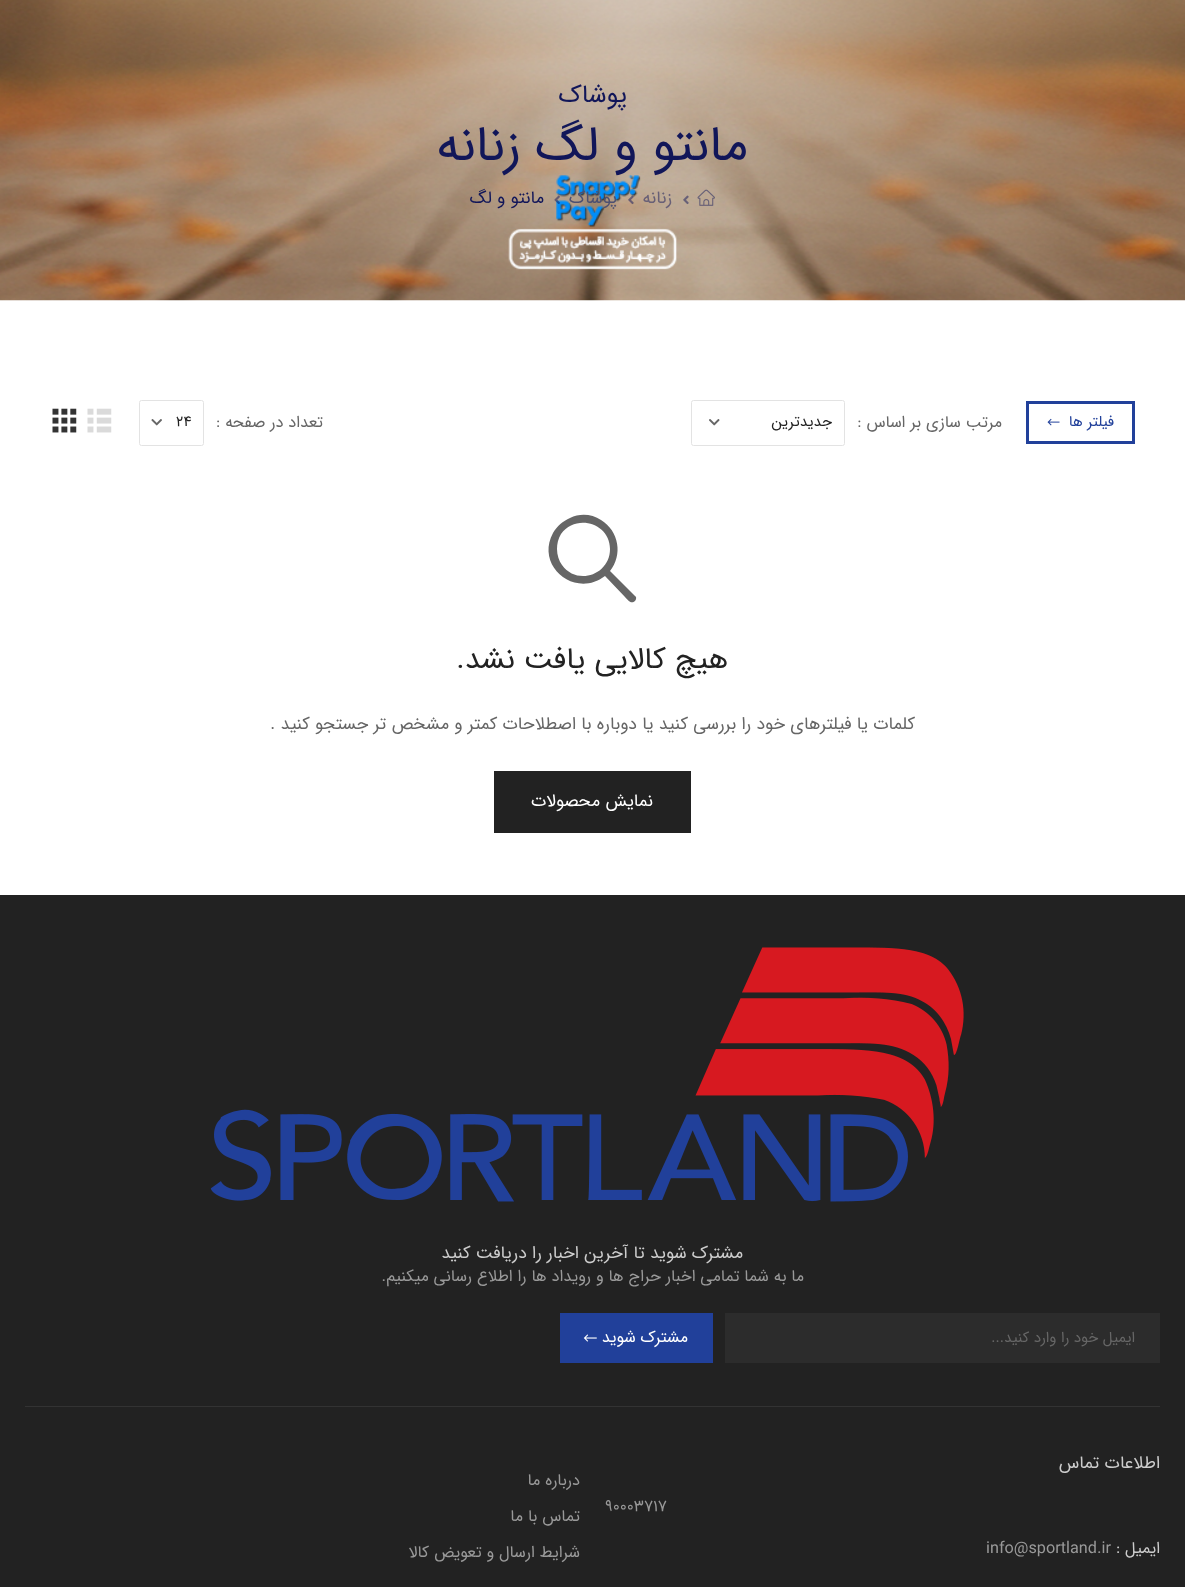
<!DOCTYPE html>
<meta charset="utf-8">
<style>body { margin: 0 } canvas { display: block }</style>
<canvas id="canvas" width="1185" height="1587"></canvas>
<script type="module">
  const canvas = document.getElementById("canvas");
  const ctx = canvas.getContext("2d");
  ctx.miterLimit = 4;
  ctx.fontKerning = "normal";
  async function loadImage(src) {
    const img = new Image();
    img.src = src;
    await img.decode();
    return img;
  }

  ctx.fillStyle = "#ffffff";
  ctx.fillRect(0, 0, 1185, 1587);
  ctx.drawImage(await loadImage("img1.png"), 0, 0, 1185, 301);
  ctx.direction = "rtl";
  ctx.font = "25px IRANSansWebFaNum";
  ctx.fillStyle = "#111659";
  ctx.fillText("پوشاک", 627, 102);
  ctx.font = "50px IRANSansWebFaNum";
  ctx.fillText("مانتو و لگ زنانه", 748, 160);
  ctx.drawImage(await loadImage("img2.png"), 697, 189, 18, 17);
  ctx.drawImage(await loadImage("img3.png"), 683, 195, 6, 10);
  ctx.font = "17.5px IRANSansWebFaNum";
  ctx.fillStyle = "#686076";
  ctx.fillText("زنانه", 672, 203);
  ctx.drawImage(await loadImage("img4.png"), 628, 195, 6, 10);
  ctx.fillStyle = "#4d5071";
  ctx.fillText("پوشاک", 617, 203);
  ctx.drawImage(await loadImage("img5.png"), 554, 195, 6, 9);
  ctx.fillStyle = "#111659";
  ctx.fillText("مانتو و لگ", 544, 203);
  ctx.strokeStyle = "#21409a";
  ctx.lineWidth = 3;
  ctx.strokeRect(1027.5, 402.5, 106, 40);
  ctx.font = "15px IRANSansWebFaNum";
  ctx.fillStyle = "#21409a";
  ctx.fillText("فیلتر ها", 1114, 426);
  ctx.drawImage(await loadImage("img6.png"), 1047, 418, 13, 8);
  ctx.font = "16.25px IRANSansWebFaNum";
  ctx.fillStyle = "#666666";
  ctx.fillText("مرتب سازی بر اساس :", 1002, 427);
  ctx.beginPath();
  ctx.roundRect(691.5, 400.5, 153, 45, 2);
  ctx.strokeStyle = "#e3e3e3";
  ctx.lineWidth = 1;
  ctx.stroke();
  ctx.font = "15px IRANSansWebFaNum";
  ctx.fillStyle = "#222222";
  ctx.fillText("جدیدترین", 832, 426);
  ctx.drawImage(await loadImage("img7.png"), 709, 419, 11, 7);
  ctx.font = "16.25px IRANSansWebFaNum";
  ctx.fillStyle = "#666666";
  ctx.fillText("تعداد در صفحه :", 323, 427);
  ctx.beginPath();
  ctx.roundRect(139.5, 400.5, 64, 45, 2);
  ctx.stroke();
  ctx.direction = "ltr";
  ctx.font = "15px IRANSansWebFaNum";
  ctx.fillStyle = "#222222";
  ctx.fillText("24", 176, 426);
  ctx.drawImage(await loadImage("img8.png"), 151, 419, 11, 7);
  ctx.drawImage(await loadImage("img9.png"), 87, 408, 25, 25);
  ctx.drawImage(await loadImage("img10.png"), 52, 408, 25, 25);
  ctx.fillStyle = "#666666";
  ctx.beginPath();
  ctx.moveTo(635, 596);
  ctx.lineTo(610, 571);
  ctx.bezierCurveTo(623, 555, 619, 531, 601, 520);
  ctx.bezierCurveTo(592, 514, 580, 513, 570, 518);
  ctx.bezierCurveTo(563, 521, 557, 526, 553, 533);
  ctx.bezierCurveTo(535, 566, 575, 599, 605, 576);
  ctx.lineTo(625, 597);
  ctx.bezierCurveTo(627, 599, 631, 605, 635, 601);
  ctx.bezierCurveTo(636, 600, 637, 597, 635, 596);
  ctx.closePath();
  ctx.moveTo(557, 549);
  ctx.bezierCurveTo(557, 544, 558, 539, 561, 534);
  ctx.bezierCurveTo(576, 513, 610, 523, 610, 549);
  ctx.bezierCurveTo(610, 575, 577, 586, 562, 565);
  ctx.bezierCurveTo(559, 561, 557, 555, 557, 549);
  ctx.closePath();
  ctx.fill();
  ctx.direction = "rtl";
  ctx.font = "30px IRANSansWebFaNum";
  ctx.fillStyle = "#222222";
  ctx.fillText("هیچ کالایی یافت نشد.", 728, 668);
  ctx.font = "17.5px IRANSansWebFaNum";
  ctx.fillStyle = "#666666";
  ctx.fillText("کلمات یا فیلترهای خود را بررسی کنید یا دوباره با اصطلاحات کمتر و مشخص تر جستجو کنید .", 915, 729);
  ctx.fillStyle = "#222222";
  ctx.fillRect(494, 771, 197, 62);
  ctx.fillStyle = "#ffffff";
  ctx.fillText("نمایش محصولات", 653, 806);
  ctx.fillStyle = "#222222";
  ctx.fillRect(0, 895, 1185, 692);
  ctx.fillStyle = "#333333";
  ctx.fillRect(25, 1406, 1135, 1);
  ctx.drawImage(await loadImage("img11.png"), 210, 947, 754, 255);
  ctx.fillStyle = "#cccccc";
  ctx.fillText("مشترک شوید تا آخرین اخبار را دریافت کنید", 743, 1258);
  ctx.font = "16.25px IRANSansWebFaNum";
  ctx.fillStyle = "#999999";
  ctx.fillText("ما به شما تمامی اخبار حراج ها و رویداد ها را اطلاع رسانی میکنیم.", 804, 1281);
  ctx.fillStyle = "#2c2c2c";
  ctx.fillRect(725, 1313, 435, 50);
  ctx.font = "15px IRANSansWebFaNum";
  ctx.fillStyle = "#666666";
  ctx.fillText("ایمیل خود را وارد کنید...", 1135, 1342);
  ctx.fillStyle = "#21409a";
  ctx.fillRect(560, 1313, 153, 50);
  ctx.font = "16.25px IRANSansWebFaNum";
  ctx.fillStyle = "#ffffff";
  ctx.fillText("مشترک شوید", 688, 1342);
  ctx.drawImage(await loadImage("img12.png"), 583, 1334, 14, 8);
  ctx.font = "17.5px IRANSansWebFaNum";
  ctx.fillStyle = "#cccccc";
  ctx.fillText("اطلاعات تماس", 1160, 1468);
  ctx.direction = "ltr";
  ctx.font = "16.25px IRANSansWebFaNum";
  ctx.fillStyle = "#999999";
  ctx.fillText("90003717", 605, 1511);
  ctx.direction = "rtl";
  ctx.fillStyle = "#cccccc";
  ctx.fillText("ایمیل :", 1160, 1553);
  ctx.direction = "ltr";
  ctx.fillStyle = "#999999";
  ctx.fillText("info@sportland.ir", 986, 1553);
  ctx.direction = "rtl";
  ctx.fillText("درباره ما", 580, 1485);
  ctx.fillText("تماس با ما", 580, 1521);
  ctx.fillText("شرایط ارسال و تعویض کالا", 580, 1557);
</script>
